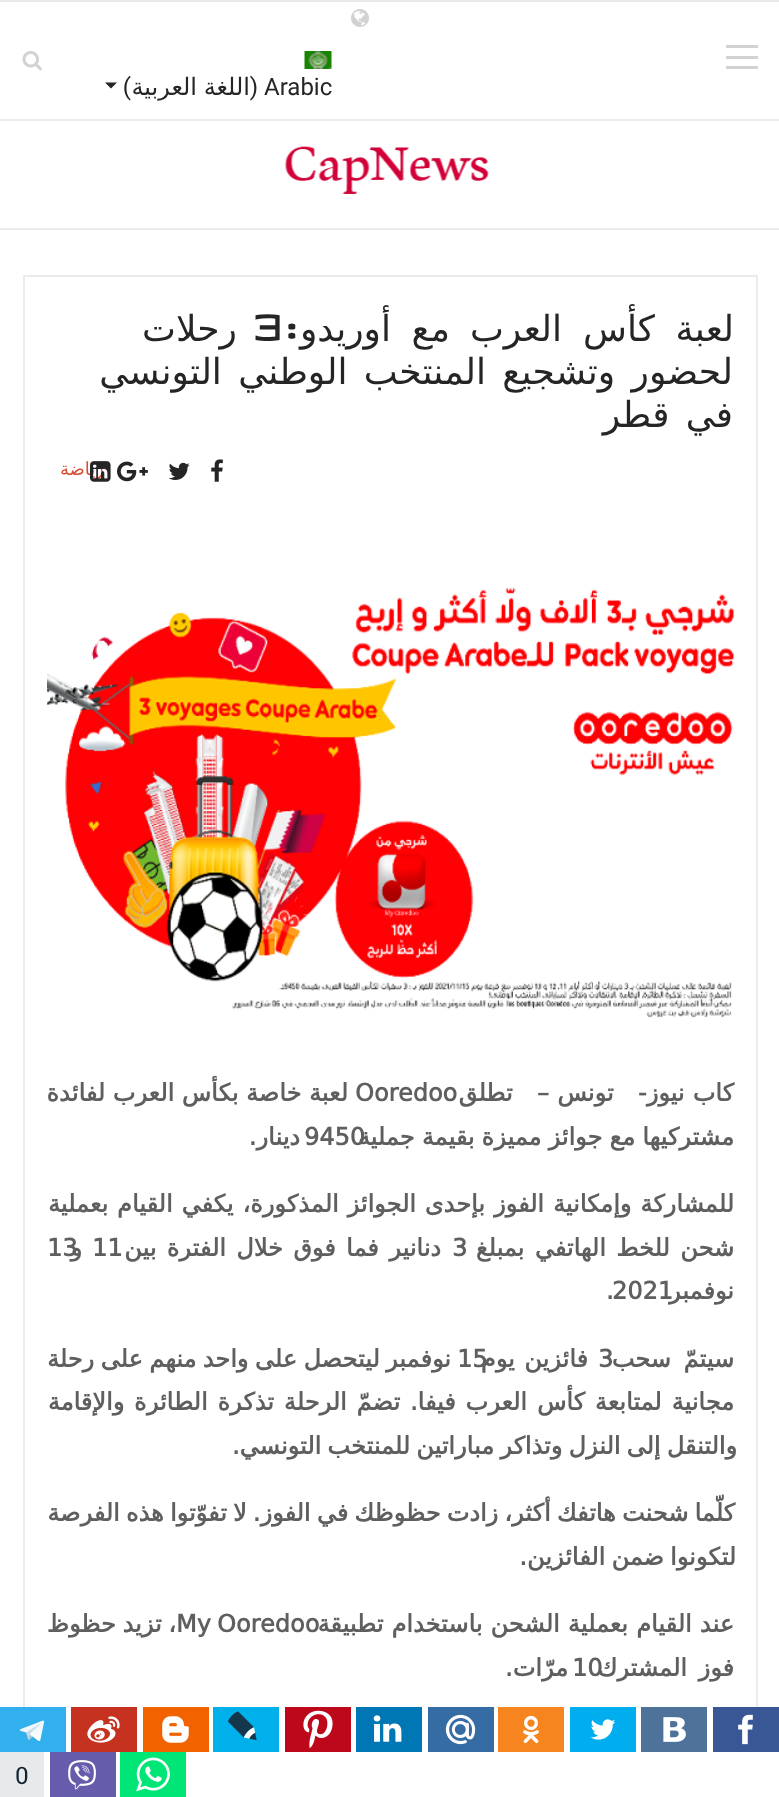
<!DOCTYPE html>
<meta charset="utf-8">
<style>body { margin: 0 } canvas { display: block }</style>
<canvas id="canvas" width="779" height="1797"></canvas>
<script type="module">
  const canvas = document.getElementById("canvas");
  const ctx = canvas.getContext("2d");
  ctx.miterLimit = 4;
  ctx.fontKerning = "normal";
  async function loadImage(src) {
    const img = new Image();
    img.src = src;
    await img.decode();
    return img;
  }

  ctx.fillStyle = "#ffffff";
  ctx.fillRect(0, 0, 779, 1797);
  ctx.fillStyle = "#eaeaea";
  ctx.fillRect(0, 0, 779, 2);
  ctx.fillRect(0, 119, 779, 2);
  ctx.fillStyle = "#d2d2d3";
  ctx.fillRect(726, 45, 32, 3);
  ctx.fillRect(726, 56, 32, 3);
  ctx.fillRect(726, 66, 32, 3);
  ctx.drawImage(await loadImage("img1.png"), 22, 51, 20, 20);
  ctx.drawImage(await loadImage("img2.png"), 351, 9, 18, 18);
  ctx.drawImage(await loadImage("img3.png"), 304, 51, 28, 18);
  ctx.font = "24px Roboto";
  ctx.fillStyle = "#252525";
  ctx.fillText("Arabic", 264, 95);
  ctx.direction = "rtl";
  ctx.fillText("(", 258, 95);
  ctx.wordSpacing = "-1px";
  ctx.font = "24px DejaVu Sans";
  ctx.fillText("اللغة العربية", 250, 95);
  ctx.wordSpacing = "0px";
  ctx.font = "24px Roboto";
  ctx.fillText(")", 131, 95);
  ctx.beginPath();
  ctx.moveTo(105, 82.5);
  ctx.lineTo(117, 82.5);
  ctx.lineTo(111, 88.5);
  ctx.closePath();
  ctx.fill();
  ctx.drawImage(await loadImage("img4.png"), 285, 146, 204, 48);
  ctx.fillStyle = "#ebebeb";
  ctx.fillRect(0, 228, 779, 2);
  ctx.strokeStyle = "#ebebeb";
  ctx.lineWidth = 2;
  ctx.strokeRect(24, 276, 733, 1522);
  ctx.font = "36px DejaVu Sans";
  ctx.fillStyle = "#252525";
  ctx.fillText("لعبة", 734, 341);
  ctx.fillText("كأس", 655, 341);
  ctx.fillText("العرب", 562, 341);
  ctx.fillText("مع", 450, 341);
  ctx.fillText("أوريدو", 391, 341);
  ctx.font = "36px Revalia";
  ctx.fillText(":", 300, 341);
  ctx.direction = "ltr";
  ctx.fillText("3", 253, 341);
  ctx.direction = "rtl";
  ctx.font = "36px DejaVu Sans";
  ctx.fillText("رحلات", 237, 341);
  ctx.wordSpacing = "5px";
  ctx.fillText("لحضور وتشجيع المنتخب الوطني التونسي", 733, 384);
  ctx.fillText("في قطر", 733, 427);
  ctx.drawImage(await loadImage("img5.png"), 211, 459, 12, 23);
  ctx.drawImage(await loadImage("img6.png"), 168, 462, 22, 18);
  ctx.drawImage(await loadImage("img7.png"), 117, 461, 31, 21);
  ctx.letterSpacing = "2.5px";
  ctx.wordSpacing = "0px";
  ctx.font = "18px DejaVu Sans";
  ctx.fillStyle = "#d94d30";
  ctx.fillText("رياضة", 104, 475);
  ctx.drawImage(await loadImage("img8.png"), 90, 461, 21, 21);
  ctx.drawImage(await loadImage("img9.png"), 47, 587, 687, 431);
  ctx.letterSpacing = "0px";
  ctx.wordSpacing = "0.5px";
  ctx.font = "bold 24px DejaVu Sans";
  ctx.fillStyle = "#5f5f5f";
  ctx.fillText("كاب نيوز-   تونس –   تطلق", 734, 1101);
  ctx.wordSpacing = "0px";
  ctx.direction = "ltr";
  ctx.fillText("Ooredoo", 355, 1101);
  ctx.direction = "rtl";
  ctx.fillText("لعبة خاصة بكأس العرب لفائدة", 348, 1101);
  ctx.direction = "ltr";
  ctx.fillText("9450", 304, 1145);
  ctx.wordSpacing = "-0.5px";
  ctx.direction = "rtl";
  ctx.fillText("مشتركيها مع جوائز مميزة بقيمة جملية", 734, 1145);
  ctx.wordSpacing = "0px";
  ctx.fillText("دينار.", 300, 1145);
  ctx.wordSpacing = "1.25px";
  ctx.fillText("للمشاركة وإمكانية الفوز بإحدى الجوائز المذكورة، يكفي القيام بعملية", 734, 1212);
  ctx.wordSpacing = "2.75px";
  ctx.fillText("شحن للخط الهاتفي بمبلغ", 734, 1256);
  ctx.wordSpacing = "0px";
  ctx.direction = "ltr";
  ctx.fillText("3", 452, 1256);
  ctx.wordSpacing = "2.75px";
  ctx.direction = "rtl";
  ctx.fillText("دنانير فما فوق خلال الفترة بين", 441, 1256);
  ctx.wordSpacing = "0px";
  ctx.direction = "ltr";
  ctx.fillText("11", 92, 1256);
  ctx.fillText("13", 47, 1256);
  ctx.direction = "rtl";
  ctx.fillText("و", 82, 1256);
  ctx.direction = "ltr";
  ctx.fillText("2021", 612, 1299);
  ctx.direction = "rtl";
  ctx.fillText("نوفمبر", 734, 1299);
  ctx.direction = "ltr";
  ctx.fillText(".", 606, 1299);
  ctx.wordSpacing = "5px";
  ctx.direction = "rtl";
  ctx.fillText("سيتمّ سحب", 734, 1367);
  ctx.wordSpacing = "0px";
  ctx.direction = "ltr";
  ctx.fillText("3", 598, 1367);
  ctx.fillText("15", 457, 1367);
  ctx.wordSpacing = "2px";
  ctx.direction = "rtl";
  ctx.fillText("فائزين يوم", 588, 1367);
  ctx.wordSpacing = "-1.25px";
  ctx.fillText("نوفمبر ليتحصل على واحد منهم على رحلة", 451, 1367);
  ctx.wordSpacing = "2.25px";
  ctx.fillText("مجانية لمتابعة كأس العرب فيفا. تضمّ الرحلة تذكرة الطائرة والإقامة", 734, 1410);
  ctx.wordSpacing = "-1.5px";
  ctx.fillText("والتنقل إلى النزل وتذاكر مباراتين للمنتخب التونسي.", 737, 1454);
  ctx.fillText("كلّما شحنت هاتفك أكثر، زادت حظوظك في الفوز. لا تفوّتوا هذه الفرصة", 735, 1521);
  ctx.fillText("لتكونوا ضمن الفائزين.", 736, 1565);
  ctx.direction = "ltr";
  ctx.fillText("My Ooredoo", 176, 1632);
  ctx.wordSpacing = "0.5px";
  ctx.direction = "rtl";
  ctx.fillText("عند القيام بعملية الشحن باستخدام تطبيقة", 734, 1632);
  ctx.wordSpacing = "-1px";
  ctx.fillText("، تزيد حظوظ", 176, 1632);
  ctx.wordSpacing = "0px";
  ctx.direction = "ltr";
  ctx.fillText("10", 572, 1676);
  ctx.wordSpacing = "4px";
  ctx.direction = "rtl";
  ctx.fillText("فوز المشترك", 734, 1676);
  ctx.wordSpacing = "0px";
  ctx.fillText("مرّات.", 568, 1676);
  ctx.fillStyle = "#ffffff";
  ctx.fillRect(756, 1707, 2, 90);
  ctx.fillStyle = "#3a5795";
  ctx.fillRect(713, 1707, 66, 45);
  ctx.drawImage(await loadImage("img10.png"), 738, 1714, 15, 31);
  ctx.fillStyle = "#4e7299";
  ctx.fillRect(641, 1707, 66, 45);
  ctx.drawImage(await loadImage("img11.png"), 663, 1717, 23, 25);
  ctx.fillStyle = "#00aeef";
  ctx.fillRect(570, 1707, 66, 45);
  ctx.drawImage(await loadImage("img12.png"), 590, 1719, 26, 21);
  ctx.fillStyle = "#f6851f";
  ctx.fillRect(498, 1707, 66, 45);
  ctx.drawImage(await loadImage("img13.png"), 523, 1715, 16, 29);
  ctx.fillStyle = "#356ca4";
  ctx.fillRect(428, 1707, 66, 45);
  ctx.drawImage(await loadImage("img14.png"), 445, 1714, 31, 31);
  ctx.fillStyle = "#0077b5";
  ctx.fillRect(356, 1707, 66, 45);
  ctx.drawImage(await loadImage("img15.png"), 373, 1715, 29, 27);
  ctx.fillStyle = "#bd081c";
  ctx.fillRect(285, 1707, 66, 45);
  ctx.drawImage(await loadImage("img16.png"), 303, 1710, 30, 39);
  ctx.fillStyle = "#00b0ea";
  ctx.fillRect(213, 1707, 66, 45);
  ctx.drawImage(await loadImage("img17.png"), 227, 1711, 30, 30);
  ctx.fillStyle = "#f26300";
  ctx.fillRect(143, 1707, 66, 45);
  ctx.drawImage(await loadImage("img18.png"), 162, 1716, 27, 27);
  ctx.fillStyle = "#c53220";
  ctx.fillRect(71, 1707, 66, 45);
  ctx.drawImage(await loadImage("img19.png"), 87, 1716, 33, 27);
  ctx.fillStyle = "#32afed";
  ctx.fillRect(0, 1707, 66, 45);
  ctx.drawImage(await loadImage("img20.png"), 19, 1720, 26, 21);
  ctx.fillStyle = "#00e676";
  ctx.fillRect(120, 1752, 66, 45);
  ctx.drawImage(await loadImage("img21.png"), 136, 1757, 34, 35);
  ctx.fillStyle = "#665cac";
  ctx.fillRect(50, 1752, 66, 45);
  ctx.drawImage(await loadImage("img22.png"), 68, 1760, 28, 30);
  ctx.fillStyle = "#e7e9eb";
  ctx.fillRect(0, 1752, 44, 45);
  ctx.direction = "ltr";
  ctx.font = "24px Roboto Slab";
  ctx.fillStyle = "#122334";
  ctx.fillText("0", 15, 1784);
</script>
